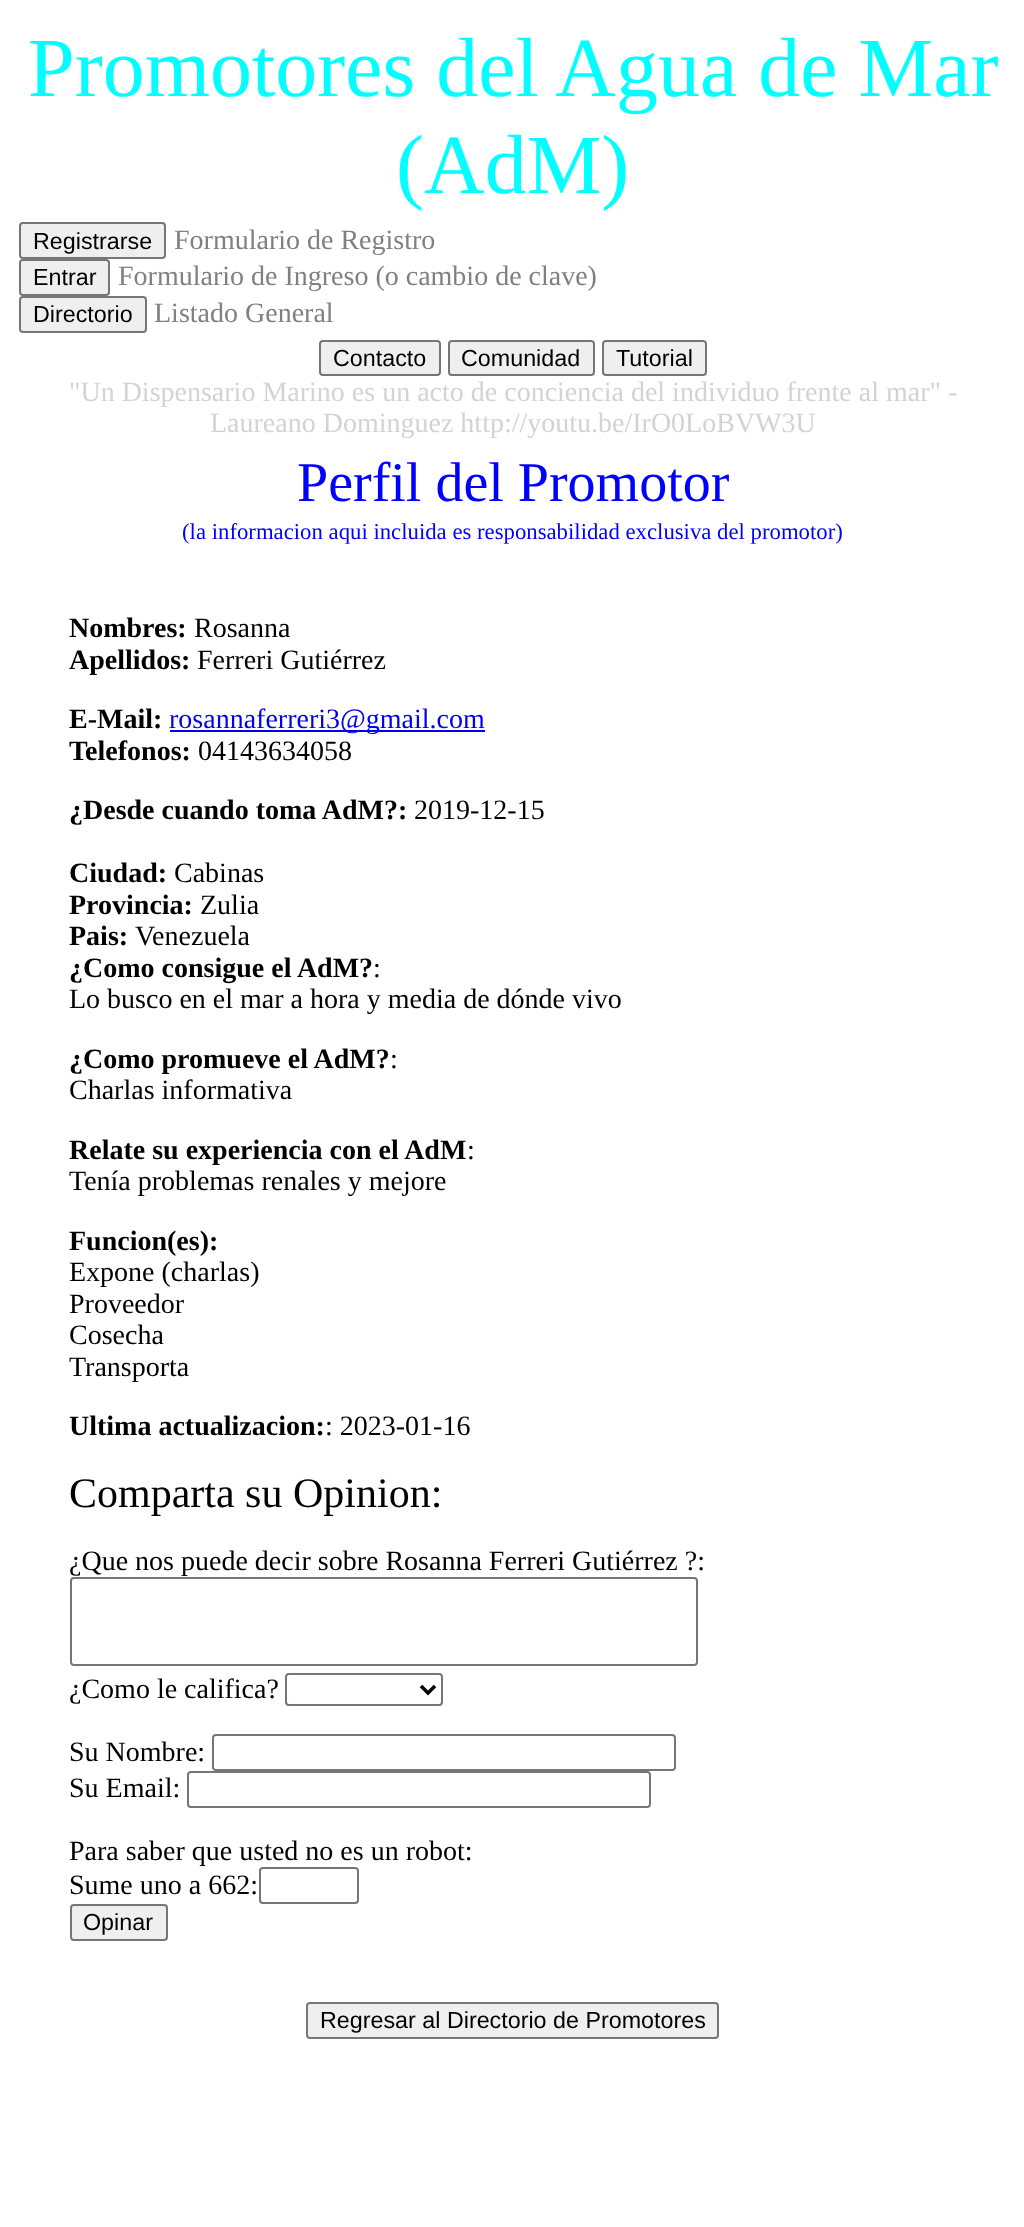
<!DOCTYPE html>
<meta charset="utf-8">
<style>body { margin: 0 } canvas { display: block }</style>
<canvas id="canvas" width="1024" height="2227"></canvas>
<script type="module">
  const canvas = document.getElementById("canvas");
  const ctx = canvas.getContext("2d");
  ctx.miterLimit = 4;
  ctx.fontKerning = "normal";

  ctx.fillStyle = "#ffffff";
  ctx.fillRect(0, 0, 1024, 2227);
  ctx.font = "84px Liberation Serif";
  ctx.fillStyle = "#00ffff";
  ctx.fillText("Promotores del Agua de Mar", 28, 96);
  ctx.fillText("(AdM)", 396, 193);
  ctx.fillStyle = "#efefef";
  ctx.beginPath();
  ctx.roundRect(20, 223, 145, 35, 3);
  ctx.fill();
  ctx.strokeStyle = "#767676";
  ctx.lineWidth = 2;
  ctx.stroke();
  ctx.font = "23.3px Liberation Sans";
  ctx.fillStyle = "#000000";
  ctx.fillText("Registrarse", 33, 249);
  ctx.font = "28px Liberation Serif";
  ctx.fillStyle = "#808080";
  ctx.fillText("Formulario de Registro", 174, 249);
  ctx.fillStyle = "#efefef";
  ctx.beginPath();
  ctx.roundRect(20, 260, 89, 35, 3);
  ctx.fill();
  ctx.stroke();
  ctx.font = "23.3px Liberation Sans";
  ctx.fillStyle = "#000000";
  ctx.fillText("Entrar", 33, 285);
  ctx.font = "28px Liberation Serif";
  ctx.fillStyle = "#808080";
  ctx.fillText("Formulario de Ingreso (o cambio de clave)", 118, 285);
  ctx.fillStyle = "#efefef";
  ctx.beginPath();
  ctx.roundRect(20, 297, 126, 35, 3);
  ctx.fill();
  ctx.stroke();
  ctx.font = "23.3px Liberation Sans";
  ctx.fillStyle = "#000000";
  ctx.fillText("Directorio", 33, 322);
  ctx.font = "28px Liberation Serif";
  ctx.fillStyle = "#808080";
  ctx.fillText("Listado General", 154, 322);
  ctx.fillStyle = "#efefef";
  ctx.beginPath();
  ctx.roundRect(320, 341, 120, 34, 3);
  ctx.fill();
  ctx.stroke();
  ctx.font = "23.3px Liberation Sans";
  ctx.fillStyle = "#000000";
  ctx.fillText("Contacto", 333, 366);
  ctx.fillStyle = "#efefef";
  ctx.beginPath();
  ctx.roundRect(449, 341, 145, 34, 3);
  ctx.fill();
  ctx.stroke();
  ctx.fillStyle = "#000000";
  ctx.fillText("Comunidad", 461, 366);
  ctx.fillStyle = "#efefef";
  ctx.beginPath();
  ctx.roundRect(603, 341, 103, 34, 3);
  ctx.fill();
  ctx.stroke();
  ctx.fillStyle = "#000000";
  ctx.fillText("Tutorial", 616, 366);
  ctx.font = "28px Liberation Serif";
  ctx.fillStyle = "#d3d3d3";
  ctx.fillText("\"Un Dispensario Marino es un acto de conciencia del individuo frente al mar\" -", 69, 401);
  ctx.fillText("Laureano Dominguez http://youtu.be/IrO0LoBVW3U", 210, 432);
  ctx.font = "56px Liberation Serif";
  ctx.fillStyle = "#0000ff";
  ctx.fillText("Perfil del Promotor", 297, 501);
  ctx.font = "22.75px Liberation Serif";
  ctx.fillText("(la informacion aqui incluida es responsabilidad exclusiva del promotor)", 182, 539);
  ctx.font = "bold 28px Liberation Serif";
  ctx.fillStyle = "#000000";
  ctx.fillText("Nombres:", 69, 637);
  ctx.font = "28px Liberation Serif";
  ctx.fillText("Rosanna", 194, 637);
  ctx.font = "bold 28px Liberation Serif";
  ctx.fillText("Apellidos:", 69, 669);
  ctx.font = "28px Liberation Serif";
  ctx.fillText("Ferreri Gutiérrez", 197, 669);
  ctx.font = "bold 28px Liberation Serif";
  ctx.fillText("E-Mail:", 69, 728);
  ctx.fillStyle = "#0000ee";
  ctx.fillRect(170, 730, 315, 2);
  ctx.font = "28px Liberation Serif";
  ctx.fillText("rosannaferreri3@gmail.com", 169, 728);
  ctx.font = "bold 28px Liberation Serif";
  ctx.fillStyle = "#000000";
  ctx.fillText("Telefonos:", 69, 760);
  ctx.font = "28px Liberation Serif";
  ctx.fillText("04143634058", 198, 760);
  ctx.font = "bold 28px Liberation Serif";
  ctx.fillText("¿Desde cuando toma AdM?:", 69, 819);
  ctx.font = "28px Liberation Serif";
  ctx.fillText("2019-12-15", 414, 819);
  ctx.font = "bold 28px Liberation Serif";
  ctx.fillText("Ciudad:", 69, 882);
  ctx.font = "28px Liberation Serif";
  ctx.fillText("Cabinas", 174, 882);
  ctx.font = "bold 28px Liberation Serif";
  ctx.fillText("Provincia:", 69, 914);
  ctx.font = "28px Liberation Serif";
  ctx.fillText("Zulia", 200, 914);
  ctx.font = "bold 28px Liberation Serif";
  ctx.fillText("Pais:", 69, 945);
  ctx.font = "28px Liberation Serif";
  ctx.fillText("Venezuela", 135, 945);
  ctx.font = "bold 28px Liberation Serif";
  ctx.fillText("¿Como consigue el AdM?", 69, 977);
  ctx.font = "28px Liberation Serif";
  ctx.fillText(":", 373, 977);
  ctx.fillText("Lo busco en el mar a hora y media de dónde vivo", 69, 1008);
  ctx.font = "bold 28px Liberation Serif";
  ctx.fillText("¿Como promueve el AdM?", 69, 1068);
  ctx.font = "28px Liberation Serif";
  ctx.fillText(":", 390, 1068);
  ctx.fillText("Charlas informativa", 69, 1099);
  ctx.font = "bold 28px Liberation Serif";
  ctx.fillText("Relate su experiencia con el AdM", 69, 1159);
  ctx.font = "28px Liberation Serif";
  ctx.fillText(":", 467, 1159);
  ctx.fillText("Tenía problemas renales y mejore", 69, 1190);
  ctx.font = "bold 28px Liberation Serif";
  ctx.fillText("Funcion(es):", 69, 1250);
  ctx.font = "28px Liberation Serif";
  ctx.fillText("Expone (charlas)", 69, 1281);
  ctx.fillText("Proveedor", 69, 1313);
  ctx.fillText("Cosecha", 69, 1344);
  ctx.fillText("Transporta", 69, 1376);
  ctx.font = "bold 28px Liberation Serif";
  ctx.fillText("Ultima actualizacion:", 69, 1435);
  ctx.font = "28px Liberation Serif";
  ctx.fillText(": 2023-01-16", 325, 1435);
  ctx.font = "42px Liberation Serif";
  ctx.fillText("Comparta su Opinion:", 69, 1507);
  ctx.font = "28px Liberation Serif";
  ctx.fillText("¿Que nos puede decir sobre Rosanna Ferreri Gutiérrez ?:", 69, 1570);
  ctx.beginPath();
  ctx.roundRect(71, 1578, 626, 87, 3);
  ctx.stroke();
  ctx.fillText("¿Como le califica?", 69, 1698);
  ctx.beginPath();
  ctx.roundRect(286, 1674, 156, 31, 3);
  ctx.stroke();
  ctx.beginPath();
  ctx.moveTo(421, 1686);
  ctx.lineTo(428, 1693);
  ctx.lineTo(435, 1686);
  ctx.strokeStyle = "#000000";
  ctx.lineWidth = 3.5;
  ctx.stroke();
  ctx.fillText("Su Nombre:", 69, 1761);
  ctx.beginPath();
  ctx.roundRect(213, 1735, 462, 35, 3);
  ctx.strokeStyle = "#767676";
  ctx.lineWidth = 2;
  ctx.stroke();
  ctx.fillText("Su Email:", 69, 1797);
  ctx.beginPath();
  ctx.roundRect(188, 1772, 462, 35, 3);
  ctx.stroke();
  ctx.fillText("Para saber que usted no es un robot:", 69, 1860);
  ctx.fillText("Sume uno a 662:", 69, 1894);
  ctx.beginPath();
  ctx.roundRect(260, 1868, 98, 35, 3);
  ctx.stroke();
  ctx.fillStyle = "#efefef";
  ctx.beginPath();
  ctx.roundRect(71, 1905, 96, 35, 3);
  ctx.fill();
  ctx.stroke();
  ctx.font = "23.3px Liberation Sans";
  ctx.fillStyle = "#000000";
  ctx.fillText("Opinar", 83, 1930);
  ctx.fillStyle = "#efefef";
  ctx.beginPath();
  ctx.roundRect(307, 2003, 411, 35, 3);
  ctx.fill();
  ctx.stroke();
  ctx.fillStyle = "#000000";
  ctx.fillText("Regresar al Directorio de Promotores", 320, 2028);
</script>
